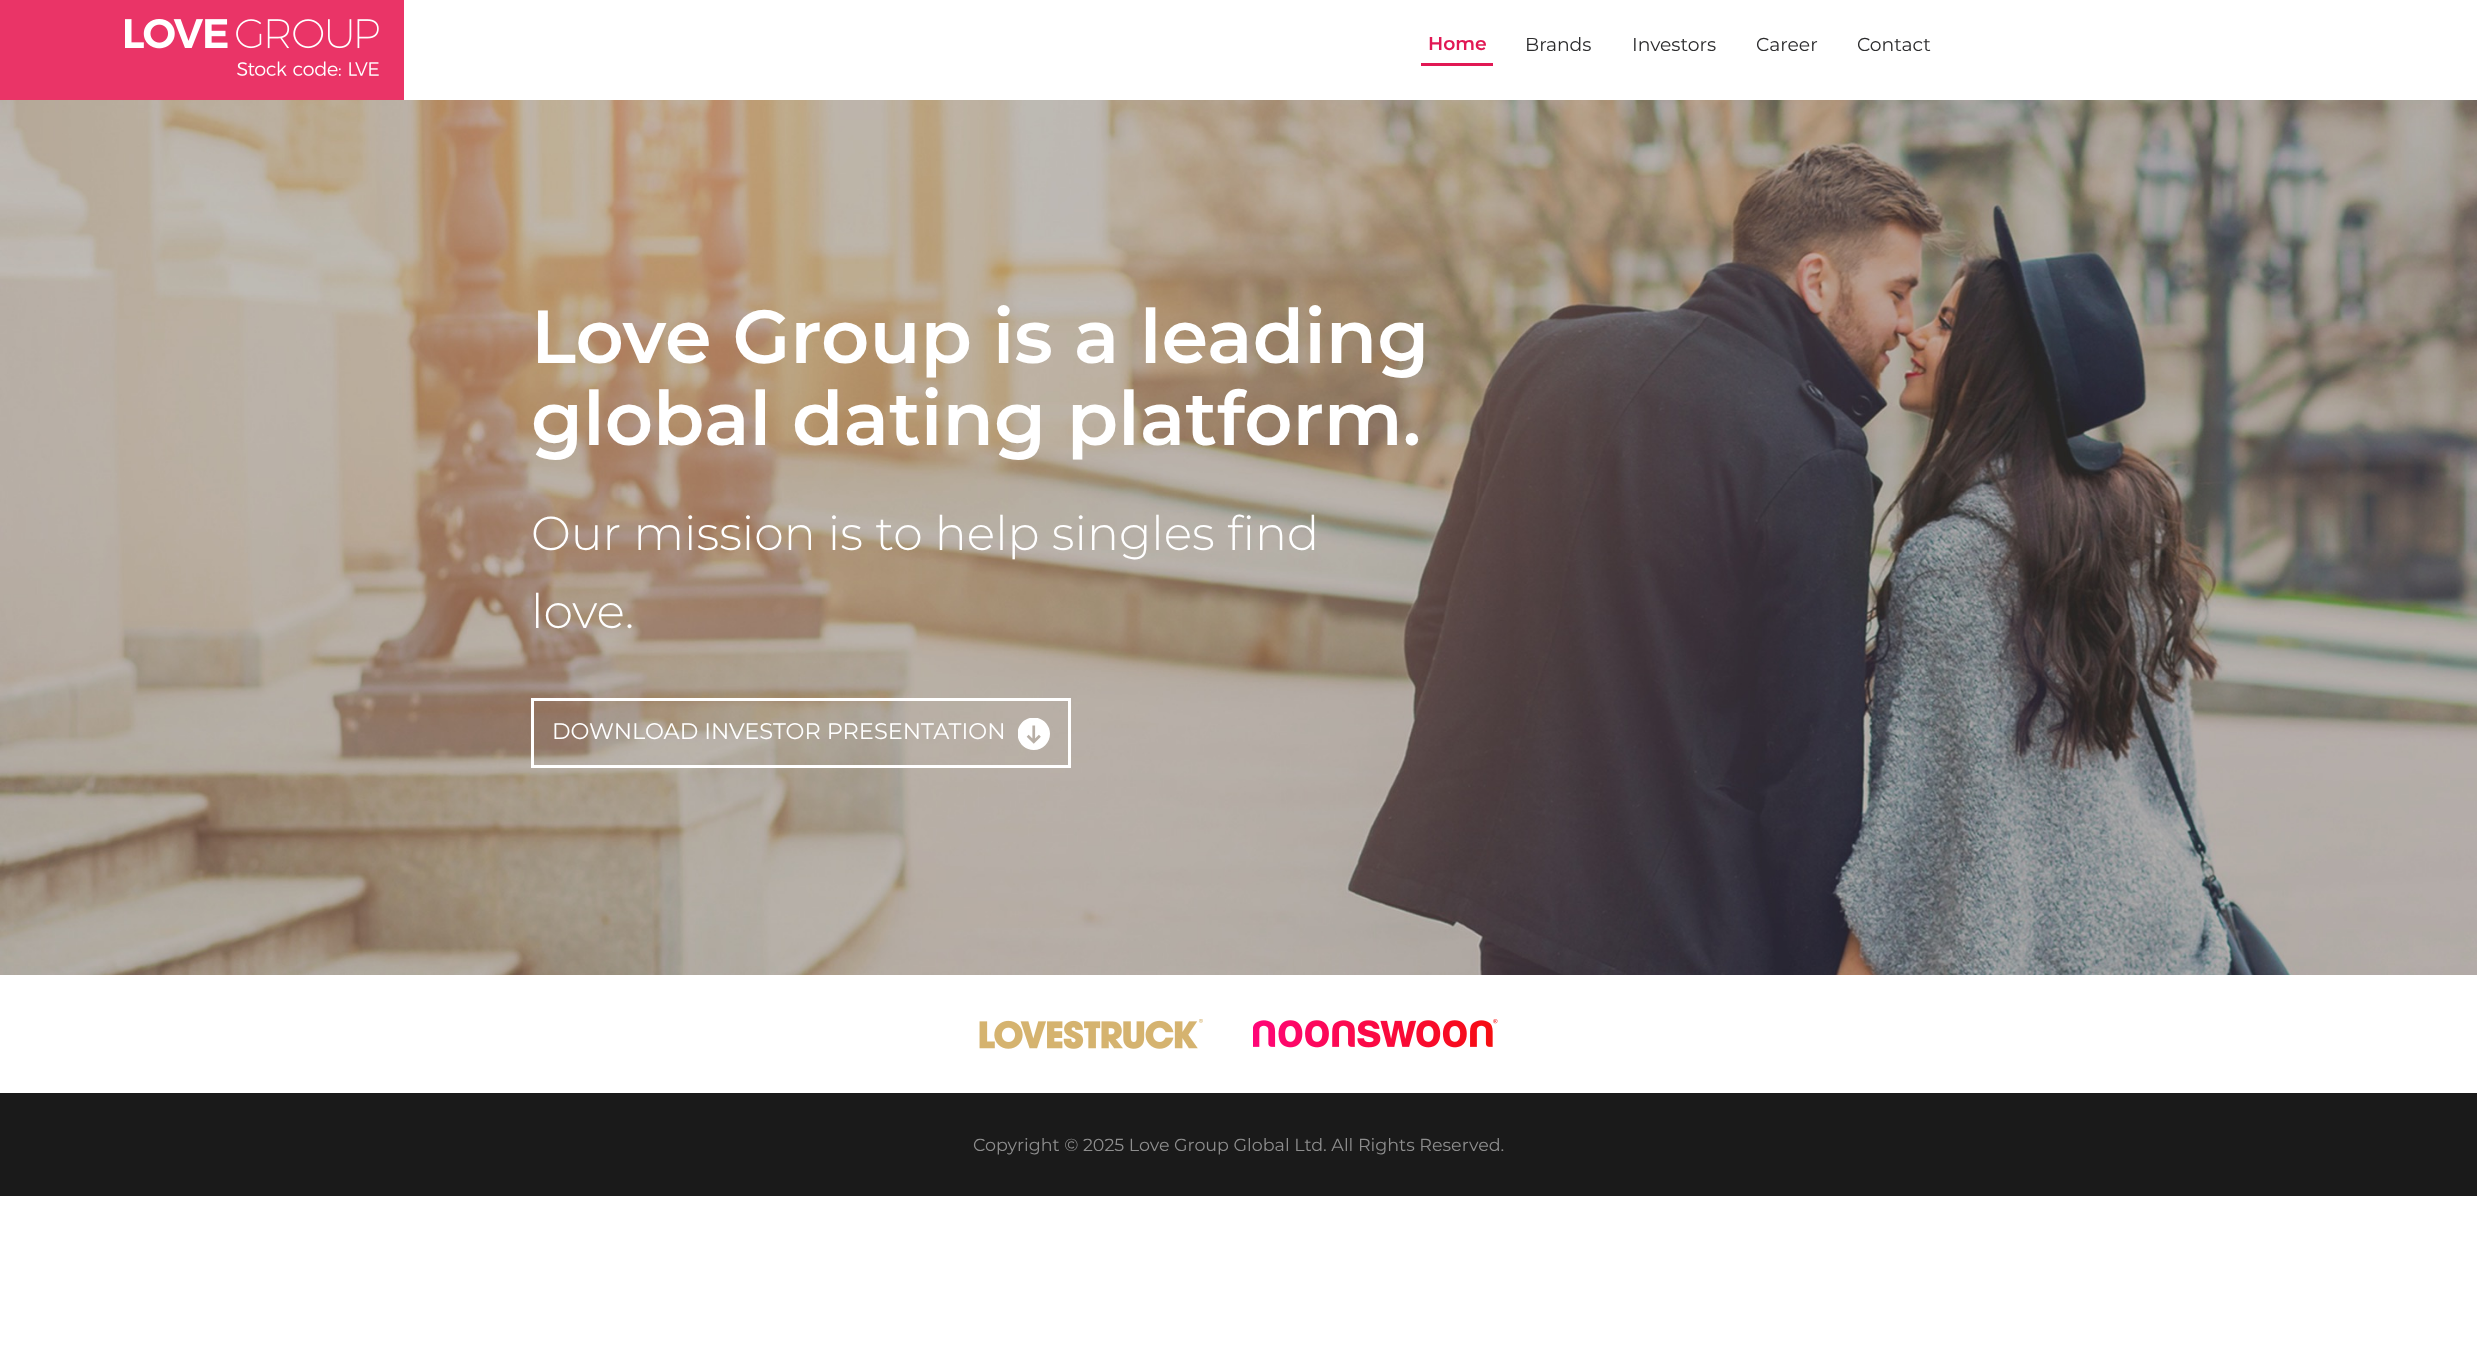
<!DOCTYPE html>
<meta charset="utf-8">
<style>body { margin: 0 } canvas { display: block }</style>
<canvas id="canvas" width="2477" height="1357"></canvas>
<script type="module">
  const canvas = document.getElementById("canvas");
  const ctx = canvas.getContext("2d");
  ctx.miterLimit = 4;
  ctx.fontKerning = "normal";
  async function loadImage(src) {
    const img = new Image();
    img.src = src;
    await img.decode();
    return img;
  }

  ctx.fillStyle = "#ffffff";
  ctx.fillRect(0, 0, 2477, 1357);
  ctx.fillStyle = "#ea3467";
  ctx.fillRect(0, 0, 404, 100);
  ctx.drawImage(await loadImage("img1.png"), 125, 19, 254, 57);
  ctx.fillStyle = "#e11854";
  ctx.fillRect(1421, 63, 72, 3);
  ctx.font = "600 18.75px Montserrat";
  ctx.fillText("Home", 1428, 50);
  ctx.font = "18.75px Montserrat";
  ctx.fillStyle = "#2c2c2d";
  ctx.fillText("Brands", 1525, 51);
  ctx.fillText("Investors", 1632, 51);
  ctx.fillText("Career", 1756, 51);
  ctx.fillText("Contact", 1857, 51);
  ctx.drawImage(await loadImage("img2.png"), 0, 100, 2477, 875);
  ctx.font = "600 75px Montserrat";
  ctx.fillStyle = "#ffffff";
  ctx.fillText("Love Group is a leading", 531, 363);
  ctx.fillText("global dating platform.", 531, 445);
  ctx.font = "300 47.5px Montserrat";
  ctx.fillText("Our mission is to help singles find", 531, 550);
  ctx.fillText("love.", 531, 628);
  ctx.strokeStyle = "#ffffff";
  ctx.lineWidth = 3;
  ctx.strokeRect(532.5, 699.5, 537, 67);
  ctx.font = "22.5px Montserrat";
  ctx.fillText("DOWNLOAD INVESTOR PRESENTATION", 552, 739);
  ctx.drawImage(await loadImage("img3.png"), 1018, 718, 32, 32);
  ctx.drawImage(await loadImage("img4.png"), 979, 1019, 224, 30);
  ctx.drawImage(await loadImage("img5.png"), 1253, 1019, 245, 29);
  ctx.fillStyle = "#1a1a1a";
  ctx.fillRect(0, 1093, 2477, 103);
  ctx.font = "17.5px Montserrat";
  ctx.fillStyle = "#8e8e8e";
  ctx.fillText("Copyright © 2025 Love Group Global Ltd. All Rights Reserved.", 973, 1151);
</script>
